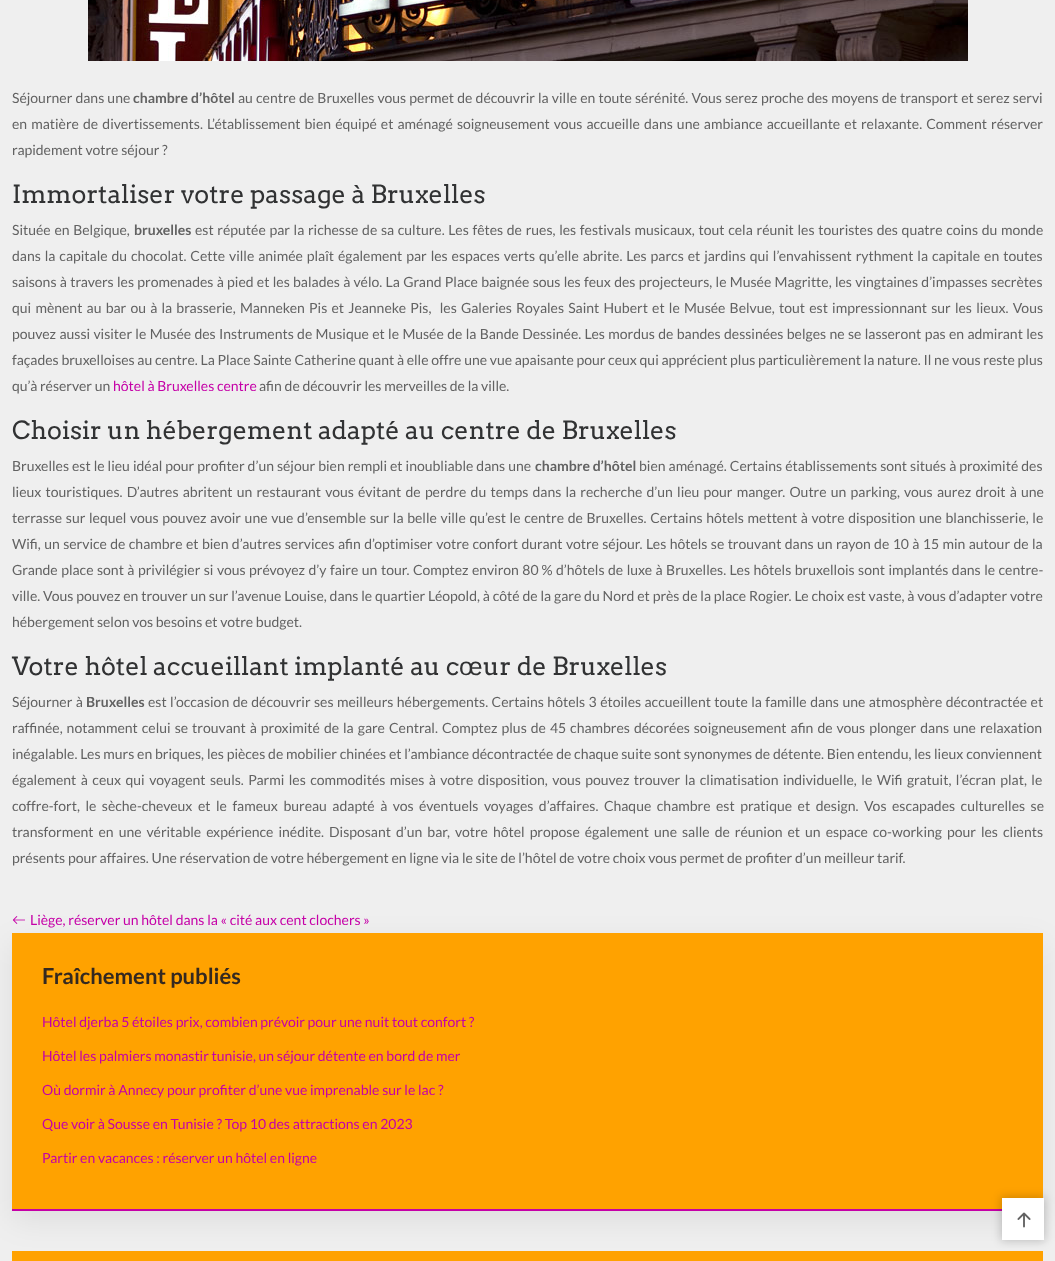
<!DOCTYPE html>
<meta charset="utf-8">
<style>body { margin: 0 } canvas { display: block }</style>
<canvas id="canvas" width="1055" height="1261"></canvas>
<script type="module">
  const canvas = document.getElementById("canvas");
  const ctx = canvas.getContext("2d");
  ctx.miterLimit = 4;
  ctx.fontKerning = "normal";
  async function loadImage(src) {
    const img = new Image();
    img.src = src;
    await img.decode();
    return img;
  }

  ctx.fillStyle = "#efefef";
  ctx.fillRect(0, 0, 1055, 1261);
  ctx.drawImage(await loadImage("img1.png"), 88, 0, 880, 61);
  ctx.wordSpacing = "0.45px";
  ctx.font = "14px Lato";
  ctx.fillStyle = "#626262";
  ctx.fillText("Séjourner dans une", 12, 103);
  ctx.font = "bold 14px Lato";
  ctx.fillText("chambre d’hôtel", 133, 103);
  ctx.font = "14px Lato";
  ctx.fillText("au centre de Bruxelles vous permet de découvrir la ville en toute sérénité. Vous serez proche des moyens de transport et serez servi", 238, 103);
  ctx.wordSpacing = "1.4px";
  ctx.fillText("en matière de divertissements. L’établissement bien équipé et aménagé soigneusement vous accueille dans une ambiance accueillante et relaxante. Comment réserver", 12, 129);
  ctx.wordSpacing = "0px";
  ctx.fillText("rapidement votre séjour ?", 12, 155);
  ctx.font = "25px Arvo";
  ctx.fillStyle = "#313233";
  ctx.fillText("Immortaliser votre passage à Bruxelles", 12, 203);
  ctx.wordSpacing = "1px";
  ctx.font = "14px Lato";
  ctx.fillStyle = "#626262";
  ctx.fillText("Située en Belgique,", 12, 235);
  ctx.wordSpacing = "0px";
  ctx.font = "bold 14px Lato";
  ctx.fillText("bruxelles", 134, 235);
  ctx.wordSpacing = "1px";
  ctx.font = "14px Lato";
  ctx.fillText("est réputée par la richesse de sa culture. Les fêtes de rues, les festivals musicaux, tout cela réunit les touristes des quatre coins du monde", 195, 235);
  ctx.wordSpacing = "1.25px";
  ctx.fillText("dans la capitale du chocolat. Cette ville animée plaît également par les espaces verts qu’elle abrite. Les parcs et jardins qui l’envahissent rythment la capitale en toutes", 12, 261);
  ctx.wordSpacing = "0.6px";
  ctx.fillText("saisons à travers les promenades à pied et les balades à vélo. La Grand Place baignée sous les feux des projecteurs, le Musée Magritte, les vingtaines d’impasses secrètes", 12, 287);
  ctx.wordSpacing = "1.5px";
  ctx.fillText("qui mènent au bar ou à la brasserie, Manneken Pis et Jeanneke Pis,  les Galeries Royales Saint Hubert et le Musée Belvue, tout est impressionnant sur les lieux. Vous", 12, 313);
  ctx.wordSpacing = "0.65px";
  ctx.fillText("pouvez aussi visiter le Musée des Instruments de Musique et le Musée de la Bande Dessinée. Les mordus de bandes dessinées belges ne se lasseront pas en admirant les", 12, 339);
  ctx.wordSpacing = "0px";
  ctx.fillText("façades bruxelloises au centre. La Place Sainte Catherine quant à elle offre une vue apaisante pour ceux qui apprécient plus particulièrement la nature. Il ne vous reste plus", 12, 365);
  ctx.fillText("qu’à réserver un", 12, 391);
  ctx.fillStyle = "#c500a7";
  ctx.fillText("hôtel à Bruxelles centre", 113, 391);
  ctx.fillStyle = "#626262";
  ctx.fillText("afin de découvrir les merveilles de la ville.", 259, 391);
  ctx.font = "25px Arvo";
  ctx.fillStyle = "#313233";
  ctx.fillText("Choisir un hébergement adapté au centre de Bruxelles", 12, 439);
  ctx.wordSpacing = "0.3px";
  ctx.font = "14px Lato";
  ctx.fillStyle = "#626262";
  ctx.fillText("Bruxelles est le lieu idéal pour profiter d’un séjour bien rempli et inoubliable dans une", 12, 471);
  ctx.wordSpacing = "0px";
  ctx.font = "bold 14px Lato";
  ctx.fillText("chambre d’hôtel", 535, 471);
  ctx.wordSpacing = "0.3px";
  ctx.font = "14px Lato";
  ctx.fillText("bien aménagé. Certains établissements sont situés à proximité des", 639, 471);
  ctx.wordSpacing = "1.5px";
  ctx.fillText("lieux touristiques. D’autres abritent un restaurant vous évitant de perdre du temps dans la recherche d’un lieu pour manger. Outre un parking, vous aurez droit à une", 12, 497);
  ctx.wordSpacing = "0.95px";
  ctx.fillText("terrasse sur lequel vous pouvez avoir une vue d’ensemble sur la belle ville qu’est le centre de Bruxelles. Certains hôtels mettent à votre disposition une blanchisserie, le", 12, 523);
  ctx.wordSpacing = "0.7px";
  ctx.fillText("Wifi, un service de chambre et bien d’autres services afin d’optimiser votre confort durant votre séjour. Les hôtels se trouvant dans un rayon de 10 à 15 min autour de la", 12, 549);
  ctx.wordSpacing = "0.8px";
  ctx.fillText("Grande place sont à privilégier si vous prévoyez d’y faire un tour. Comptez environ 80 % d’hôtels de luxe à Bruxelles. Les hôtels bruxellois sont implantés dans le centre-", 12, 575);
  ctx.wordSpacing = "0.15px";
  ctx.fillText("ville. Vous pouvez en trouver un sur l’avenue Louise, dans le quartier Léopold, à côté de la gare du Nord et près de la place Rogier. Le choix est vaste, à vous d’adapter votre", 12, 601);
  ctx.wordSpacing = "0px";
  ctx.fillText("hébergement selon vos besoins et votre budget.", 12, 627);
  ctx.font = "25px Arvo";
  ctx.fillStyle = "#313233";
  ctx.fillText("Votre hôtel accueillant implanté au c", 12, 675);
  ctx.font = "25px Liberation Sans";
  ctx.fillText("œ", 459, 675);
  ctx.font = "25px Arvo";
  ctx.fillText("ur de Bruxelles", 483, 675);
  ctx.wordSpacing = "0.75px";
  ctx.font = "14px Lato";
  ctx.fillStyle = "#626262";
  ctx.fillText("Séjourner à", 12, 707);
  ctx.wordSpacing = "0px";
  ctx.font = "bold 14px Lato";
  ctx.fillText("Bruxelles", 86, 707);
  ctx.wordSpacing = "0.75px";
  ctx.font = "14px Lato";
  ctx.fillText("est l’occasion de découvrir ses meilleurs hébergements. Certains hôtels 3 étoiles accueillent toute la famille dans une atmosphère décontractée et", 148, 707);
  ctx.wordSpacing = "1.3px";
  ctx.fillText("raffinée, notamment celui se trouvant à proximité de la gare Central. Comptez plus de 45 chambres décorées soigneusement afin de vous plonger dans une relaxation", 12, 733);
  ctx.wordSpacing = "0.1px";
  ctx.fillText("inégalable. Les murs en briques, les pièces de mobilier chinées et l’ambiance décontractée de chaque suite sont synonymes de détente. Bien entendu, les lieux conviennent", 12, 759);
  ctx.wordSpacing = "1.75px";
  ctx.fillText("également à ceux qui voyagent seuls. Parmi les commodités mises à votre disposition, vous pouvez trouver la climatisation individuelle, le Wifi gratuit, l’écran plat, le", 12, 785);
  ctx.wordSpacing = "2.8px";
  ctx.fillText("coffre-fort, le sèche-cheveux et le fameux bureau adapté à vos éventuels voyages d’affaires. Chaque chambre est pratique et design. Vos escapades culturelles se", 12, 811);
  ctx.wordSpacing = "2.3px";
  ctx.fillText("transforment en une véritable expérience inédite. Disposant d’un bar, votre hôtel propose également une salle de réunion et un espace co-working pour les clients", 12, 837);
  ctx.wordSpacing = "0px";
  ctx.fillText("présents pour affaires. Une réservation de votre hébergement en ligne via le site de l’hôtel de votre choix vous permet de profiter d’un meilleur tarif.", 12, 863);
  ctx.fillStyle = "rgba(0, 0, 0, 0.07)";
  ctx.filter = "blur(15px)";
  ctx.beginPath();
  ctx.rect(12, 943, 1031, 278);
  ctx.fill();
  ctx.filter = "none";
  ctx.drawImage(await loadImage("img2.png"), 12, 916, 13, 8);
  ctx.fillStyle = "#c500a7";
  ctx.fillText("Liège, réserver un hôtel dans la « cité aux cent clochers »", 30, 925);
  ctx.fillStyle = "#ffa200";
  ctx.fillRect(12, 933, 1031, 276);
  ctx.fillStyle = "#c500a7";
  ctx.fillRect(12, 1209, 990, 2);
  ctx.font = "bold 22px Lato";
  ctx.fillStyle = "#342920";
  ctx.fillText("Fraîchement publiés", 42, 984);
  ctx.font = "14px Lato";
  ctx.fillStyle = "#c500a7";
  ctx.fillText("Hôtel djerba 5 étoiles prix, combien prévoir pour une nuit tout confort ?", 42, 1027);
  ctx.fillText("Hôtel les palmiers monastir tunisie, un séjour détente en bord de mer", 42, 1061);
  ctx.fillText("Où dormir à Annecy pour profiter d’une vue imprenable sur le lac ?", 42, 1095);
  ctx.fillText("Que voir à Sousse en Tunisie ? Top 10 des attractions en 2023", 42, 1129);
  ctx.fillText("Partir en vacances : réserver un hôtel en ligne", 42, 1163);
  ctx.fillStyle = "#ffa200";
  ctx.fillRect(12, 1251, 1031, 10);
  ctx.fillStyle = "rgba(0, 0, 0, 0.2)";
  ctx.filter = "blur(5px)";
  ctx.beginPath();
  ctx.rect(1001, 1197, 44, 44);
  ctx.fill();
  ctx.filter = "none";
  ctx.fillStyle = "#ffffff";
  ctx.fillRect(1002, 1198, 42, 42);
  ctx.drawImage(await loadImage("img3.png"), 1017, 1212, 14, 16);
</script>
